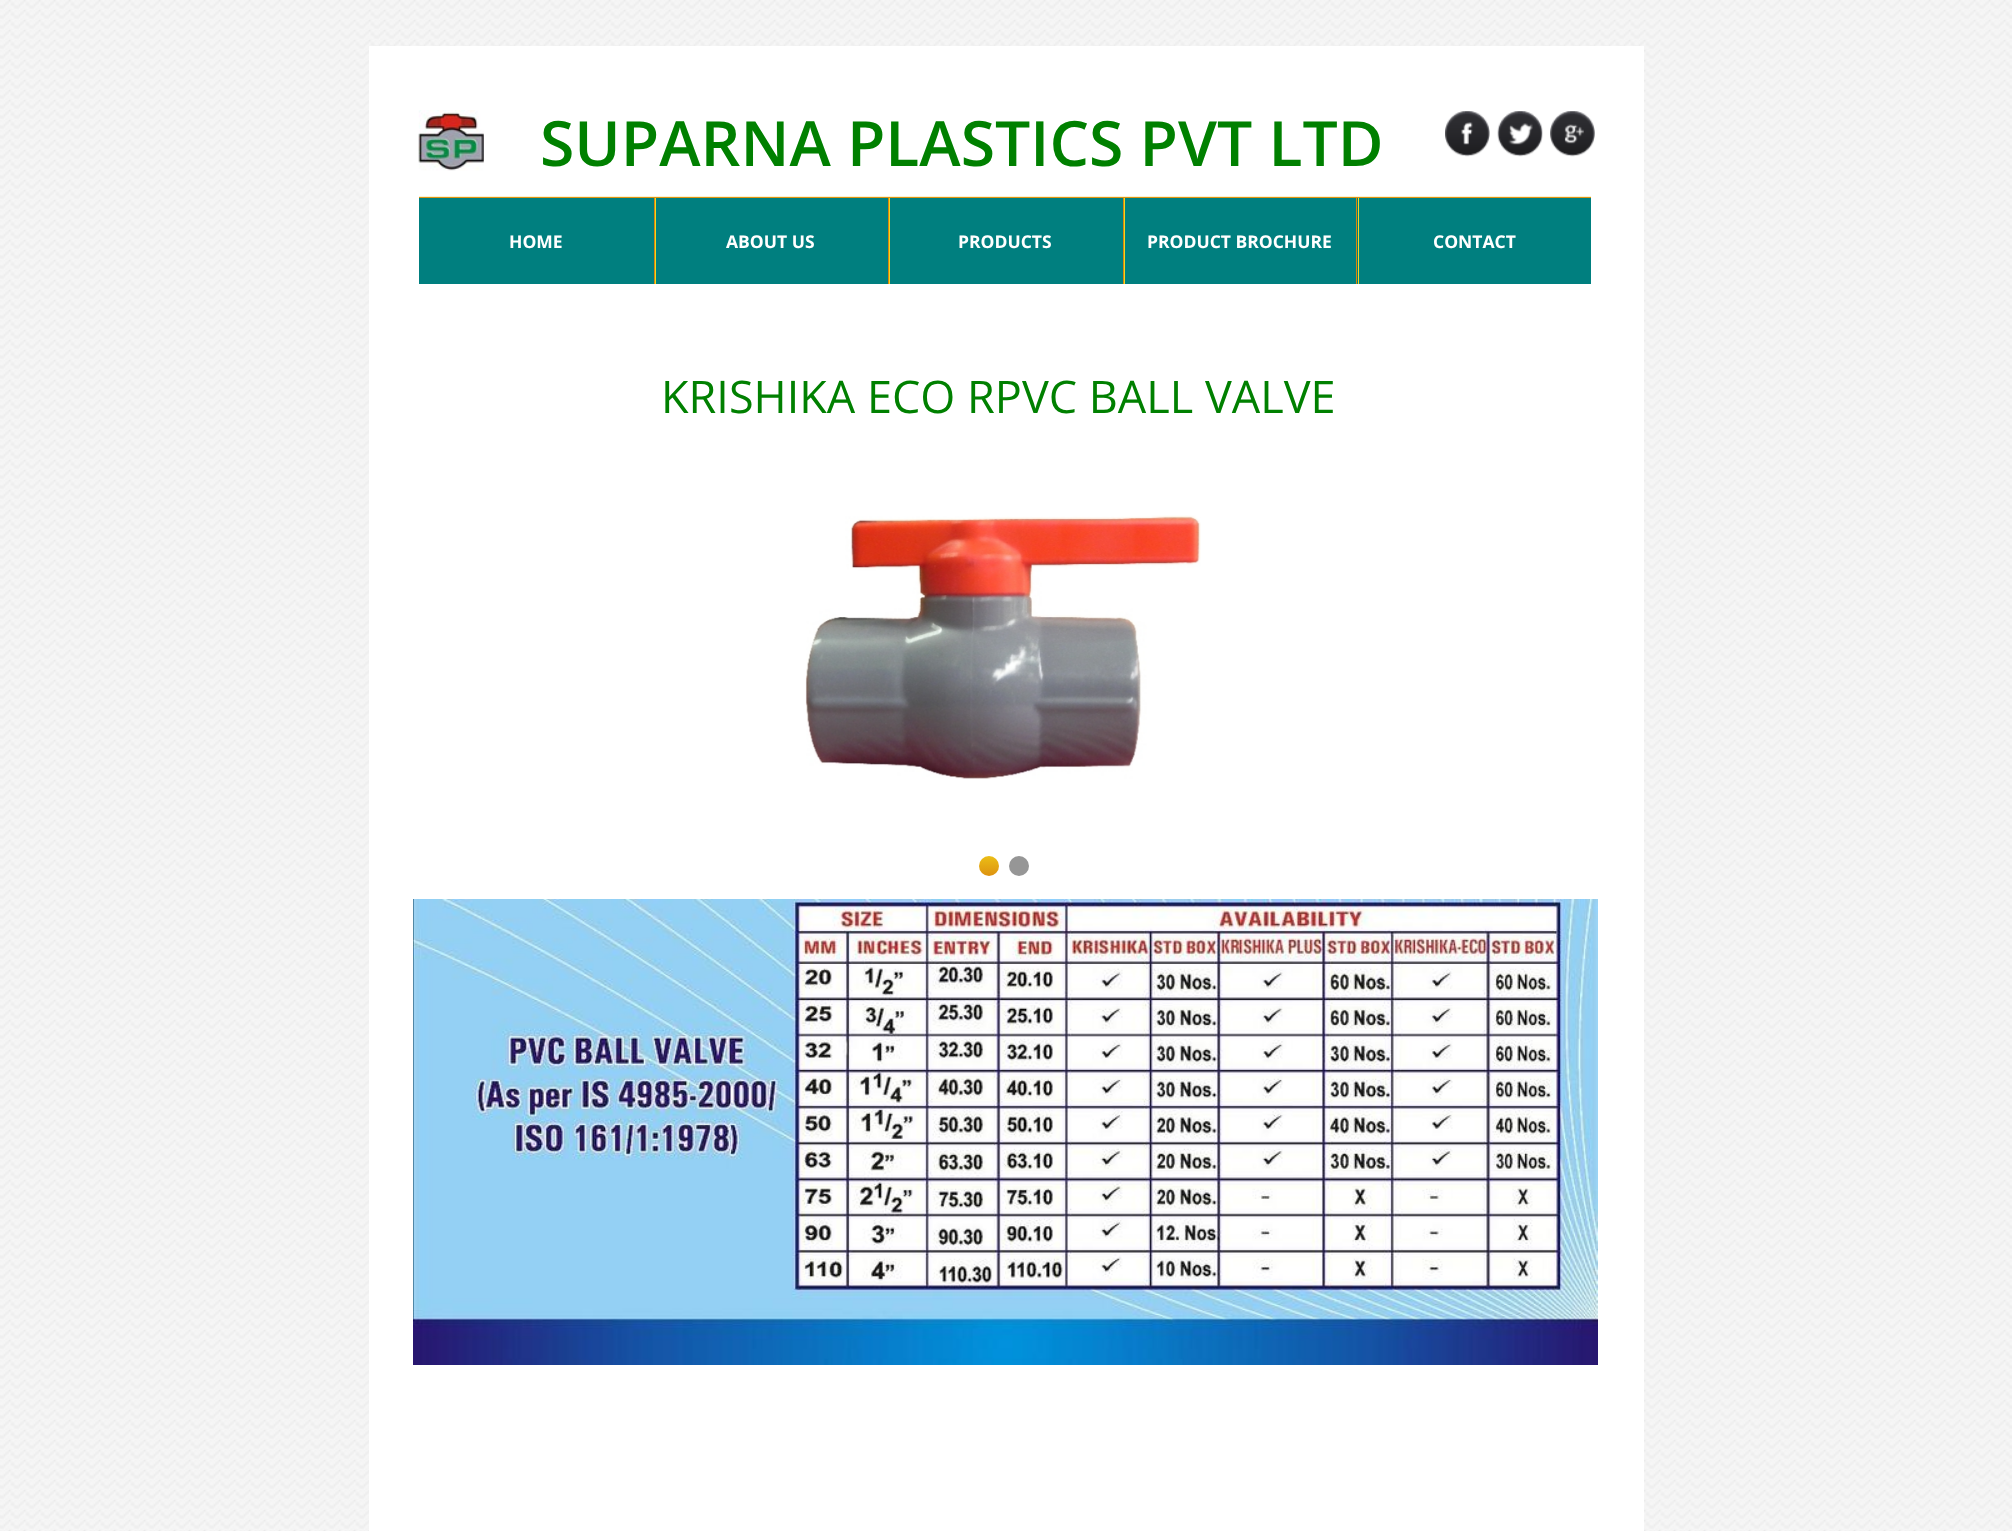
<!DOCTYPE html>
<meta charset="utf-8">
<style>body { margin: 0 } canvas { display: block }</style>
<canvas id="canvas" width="2012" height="1531"></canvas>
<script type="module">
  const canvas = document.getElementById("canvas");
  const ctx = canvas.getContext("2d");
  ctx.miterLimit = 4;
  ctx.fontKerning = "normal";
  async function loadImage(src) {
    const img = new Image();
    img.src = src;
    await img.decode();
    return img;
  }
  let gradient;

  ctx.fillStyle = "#ffffff";
  ctx.fillRect(0, 0, 2012, 1531);
  ctx.drawImage(await loadImage("img1.png"), 0, 0, 2012, 1531);
  ctx.fillRect(369, 46, 1275, 1485);
  ctx.drawImage(await loadImage("img2.png"), 418, 110, 66, 61);
  ctx.font = "600 62.5px Open Sans";
  ctx.fillStyle = "#008000";
  ctx.fillText("SUPARNA PLASTICS PVT LTD", 540, 166);
  ctx.drawImage(await loadImage("img3.png"), 1445, 111, 45, 46);
  ctx.drawImage(await loadImage("img4.png"), 1497, 111, 46, 46);
  ctx.drawImage(await loadImage("img5.png"), 1550, 111, 45, 46);
  gradient = ctx.createLinearGradient(1005, 111, 1005, 198);
  gradient.addColorStop(0, "#ebbe16");
  gradient.addColorStop(1, "#dd9210");
  ctx.fillStyle = gradient;
  ctx.fillRect(419, 197, 1172, 1);
  ctx.fillStyle = "#fbf2d0";
  ctx.fillRect(419, 196, 1172, 1);
  ctx.fillStyle = "#007f7f";
  ctx.fillRect(419, 198, 235, 86);
  ctx.font = "bold 17.5px Open Sans";
  ctx.fillStyle = "#ffffff";
  ctx.fillText("HOME", 509, 248);
  ctx.fillStyle = "#007f7f";
  ctx.fillRect(656, 198, 232, 86);
  ctx.fillStyle = "#f3d71d";
  ctx.fillRect(655, 198, 1, 86);
  ctx.fillStyle = "#d9850c";
  ctx.fillRect(654, 198, 1, 86);
  ctx.fillStyle = "#ffffff";
  ctx.fillText("ABOUT US", 726, 248);
  ctx.fillStyle = "#007f7f";
  ctx.fillRect(890, 198, 233, 86);
  ctx.fillStyle = "#f3d71d";
  ctx.fillRect(889, 198, 1, 86);
  ctx.fillStyle = "#d9850c";
  ctx.fillRect(888, 198, 1, 86);
  ctx.fillStyle = "#ffffff";
  ctx.fillText("PRODUCTS", 958, 248);
  ctx.fillStyle = "#007f7f";
  ctx.fillRect(1125, 198, 231, 86);
  ctx.fillStyle = "#f3d71d";
  ctx.fillRect(1124, 198, 1, 86);
  ctx.fillStyle = "#d9850c";
  ctx.fillRect(1123, 198, 1, 86);
  ctx.fillStyle = "#ffffff";
  ctx.fillText("PRODUCT BROCHURE", 1147, 248);
  ctx.fillStyle = "#007f7f";
  ctx.fillRect(1357, 198, 234, 86);
  ctx.fillStyle = "#f3d71d";
  ctx.fillRect(1358, 198, 1, 86);
  ctx.fillStyle = "#d9850c";
  ctx.fillRect(1356, 198, 1, 86);
  ctx.fillStyle = "#ffffff";
  ctx.fillText("CONTACT", 1433, 248);
  ctx.font = "45px Open Sans";
  ctx.fillStyle = "#008000";
  ctx.fillText("KRISHIKA ECO RPVC BALL VALVE", 661, 413);
  ctx.drawImage(await loadImage("img6.png"), 805, 515, 396, 264);
  gradient = ctx.createLinearGradient(989, 856, 989, 876);
  gradient.addColorStop(0, "#ebbe16");
  gradient.addColorStop(1, "#dd9210");
  ctx.fillStyle = gradient;
  ctx.beginPath();
  ctx.arc(989, 866, 10, 0, Math.PI * 2);
  ctx.fill();
  ctx.fillStyle = "#969696";
  ctx.beginPath();
  ctx.arc(1019, 866, 10, 0, Math.PI * 2);
  ctx.fill();
  ctx.drawImage(await loadImage("img7.png"), 413, 899, 1185, 466);
</script>
